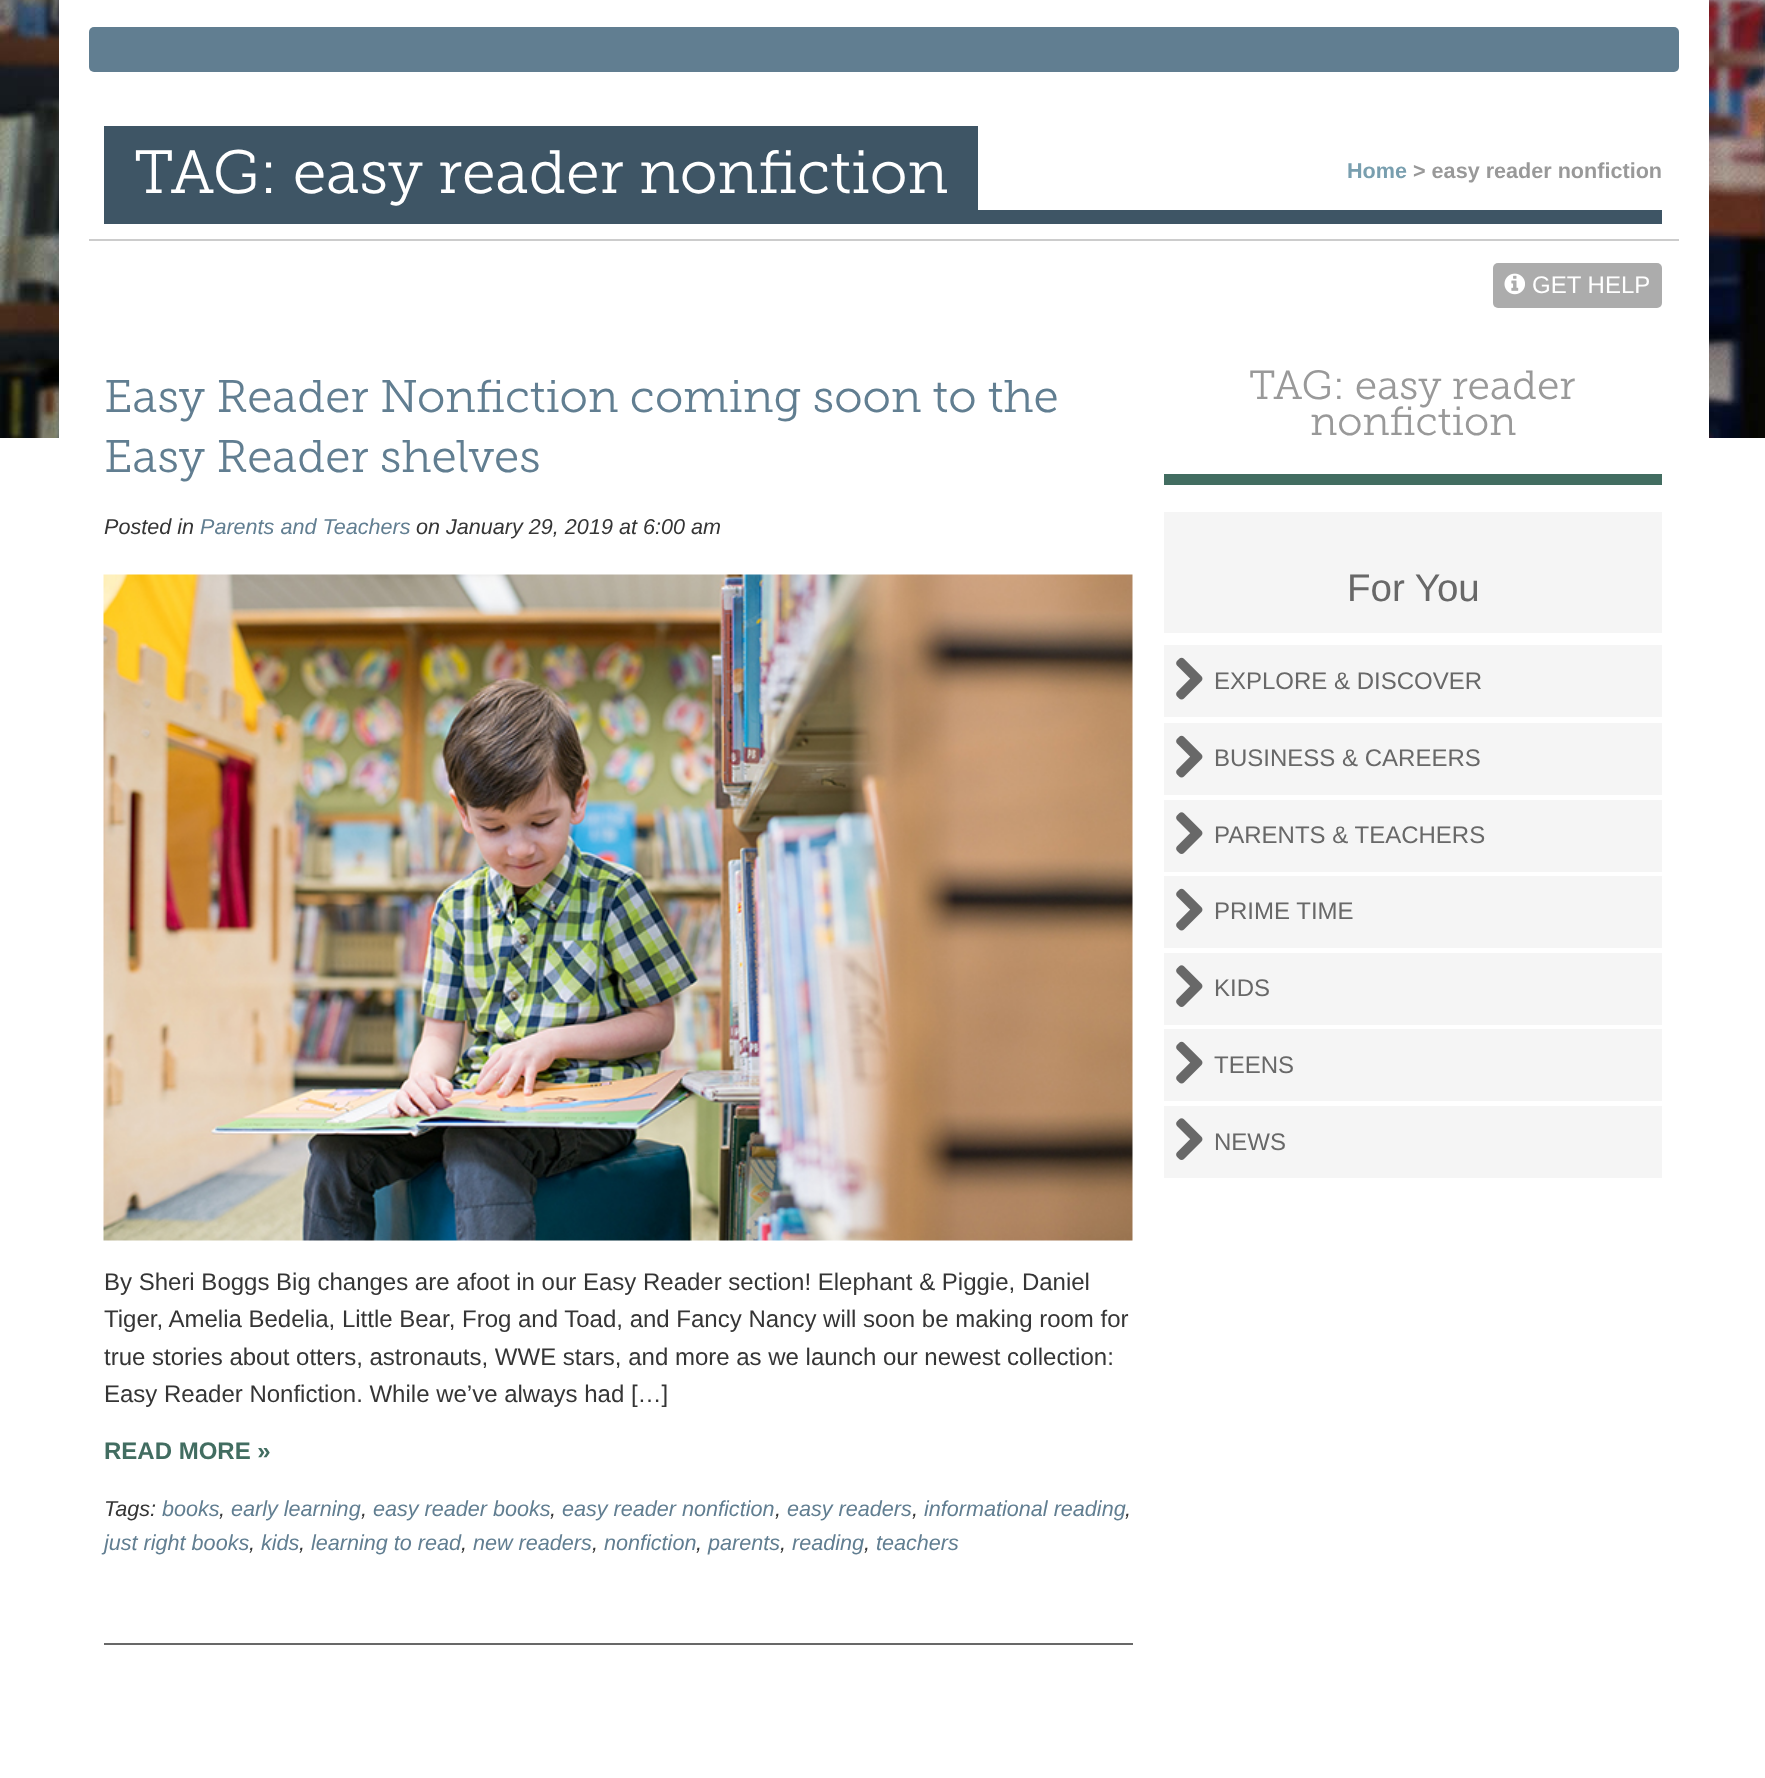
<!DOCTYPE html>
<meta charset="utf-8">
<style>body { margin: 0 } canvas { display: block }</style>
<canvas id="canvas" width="1765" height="1778"></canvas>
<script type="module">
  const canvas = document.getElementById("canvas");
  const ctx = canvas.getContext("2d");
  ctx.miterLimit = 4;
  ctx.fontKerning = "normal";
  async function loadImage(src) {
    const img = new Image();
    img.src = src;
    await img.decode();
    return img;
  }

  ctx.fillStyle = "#ffffff";
  ctx.fillRect(0, 0, 1765, 1778);
  ctx.drawImage(await loadImage("img1.png"), 0, 0, 1765, 438);
  ctx.fillRect(59, 0, 1650, 438);
  ctx.fillStyle = "#617e91";
  ctx.beginPath();
  ctx.roundRect(89, 27, 1590, 45, 5);
  ctx.fill();
  ctx.fillStyle = "#cccccc";
  ctx.fillRect(89, 239, 1590, 2);
  ctx.fillStyle = "#3e5565";
  ctx.fillRect(104, 126, 874, 84);
  ctx.font = "300 60.75px 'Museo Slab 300'";
  ctx.fillStyle = "#ffffff";
  ctx.fillText("TAG: easy reader nonfiction", 134, 193);
  ctx.font = "bold 21.6px Liberation Sans";
  ctx.fillStyle = "#799faf";
  ctx.fillText("Home", 1347, 178);
  ctx.fillStyle = "#999999";
  ctx.fillText("> easy reader nonfiction", 1413, 178);
  ctx.fillStyle = "#3e5565";
  ctx.fillRect(104, 210, 1558, 14);
  ctx.fillStyle = "#acacac";
  ctx.beginPath();
  ctx.roundRect(1493, 263, 33, 45, [5, 0, 0, 5]);
  ctx.fill();
  ctx.beginPath();
  ctx.roundRect(1526, 263, 136, 45, [0, 5, 5, 0]);
  ctx.fill();
  ctx.drawImage(await loadImage("img2.png"), 1504, 273, 21, 22);
  ctx.font = "24px Liberation Sans";
  ctx.fillStyle = "#ffffff";
  ctx.fillText("GET HELP", 1532, 293);
  ctx.fillStyle = "#686868";
  ctx.fillRect(104, 1643, 1029, 2);
  ctx.font = "300 45.6px 'Museo Slab 300'";
  ctx.fillStyle = "#617e91";
  ctx.fillText("Easy Reader Nonfiction coming soon to the", 104, 412);
  ctx.fillText("Easy Reader shelves", 104, 472);
  ctx.font = "italic 21.6px Liberation Sans";
  ctx.fillStyle = "#353535";
  ctx.fillText("Posted in", 104, 534);
  ctx.fillStyle = "#617e91";
  ctx.fillText("Parents and Teachers", 200, 534);
  ctx.fillStyle = "#353535";
  ctx.fillText("on January 29, 2019 at 6:00 am", 416, 534);
  ctx.drawImage(await loadImage("img3.png"), 103, 574, 1030, 667);
  ctx.font = "24px Liberation Sans";
  ctx.fillText("By Sheri Boggs Big changes are afoot in our Easy Reader section! Elephant & Piggie, Daniel", 104, 1290);
  ctx.fillText("Tiger, Amelia Bedelia, Little Bear, Frog and Toad, and Fancy Nancy will soon be making room for", 104, 1327);
  ctx.fillText("true stories about otters, astronauts, WWE stars, and more as we launch our newest collection:", 104, 1365);
  ctx.fillText("Easy Reader Nonfiction. While we’ve always had […]", 104, 1402);
  ctx.font = "bold 24px Liberation Sans";
  ctx.fillStyle = "#426d61";
  ctx.fillText("READ MORE »", 104, 1459);
  ctx.font = "italic 21.6px Liberation Sans";
  ctx.fillStyle = "#353535";
  ctx.fillText("Tags:", 104, 1516);
  ctx.fillStyle = "#617e91";
  ctx.fillText("books", 162, 1516);
  ctx.fillStyle = "#353535";
  ctx.fillText(",", 219, 1516);
  ctx.fillStyle = "#617e91";
  ctx.fillText("early learning", 231, 1516);
  ctx.fillStyle = "#353535";
  ctx.fillText(",", 361, 1516);
  ctx.fillStyle = "#617e91";
  ctx.fillText("easy reader books", 373, 1516);
  ctx.fillStyle = "#353535";
  ctx.fillText(",", 550, 1516);
  ctx.fillStyle = "#617e91";
  ctx.fillText("easy reader nonfiction", 562, 1516);
  ctx.fillStyle = "#353535";
  ctx.fillText(",", 775, 1516);
  ctx.fillStyle = "#617e91";
  ctx.fillText("easy readers", 787, 1516);
  ctx.fillStyle = "#353535";
  ctx.fillText(",", 912, 1516);
  ctx.fillStyle = "#617e91";
  ctx.fillText("informational reading", 924, 1516);
  ctx.fillStyle = "#353535";
  ctx.fillText(",", 1125, 1516);
  ctx.fillStyle = "#617e91";
  ctx.fillText("just right books", 104, 1550);
  ctx.fillStyle = "#353535";
  ctx.fillText(",", 249, 1550);
  ctx.fillStyle = "#617e91";
  ctx.fillText("kids", 261, 1550);
  ctx.fillStyle = "#353535";
  ctx.fillText(",", 299, 1550);
  ctx.fillStyle = "#617e91";
  ctx.fillText("learning to read", 311, 1550);
  ctx.fillStyle = "#353535";
  ctx.fillText(",", 461, 1550);
  ctx.fillStyle = "#617e91";
  ctx.fillText("new readers", 473, 1550);
  ctx.fillStyle = "#353535";
  ctx.fillText(",", 592, 1550);
  ctx.fillStyle = "#617e91";
  ctx.fillText("nonfiction", 604, 1550);
  ctx.fillStyle = "#353535";
  ctx.fillText(",", 696, 1550);
  ctx.fillStyle = "#617e91";
  ctx.fillText("parents", 708, 1550);
  ctx.fillStyle = "#353535";
  ctx.fillText(",", 780, 1550);
  ctx.fillStyle = "#617e91";
  ctx.fillText("reading", 792, 1550);
  ctx.fillStyle = "#353535";
  ctx.fillText(",", 864, 1550);
  ctx.fillStyle = "#617e91";
  ctx.fillText("teachers", 876, 1550);
  ctx.fillStyle = "#426d61";
  ctx.fillRect(1164, 474, 498, 11);
  ctx.font = "300 40.5px 'Museo Slab 300'";
  ctx.fillStyle = "#999999";
  ctx.fillText("TAG: easy reader", 1249, 399);
  ctx.fillText("nonfiction", 1310, 435);
  ctx.fillStyle = "#f5f5f5";
  ctx.fillRect(1164, 512, 498, 121);
  ctx.font = "38.5px Liberation Sans";
  ctx.fillStyle = "#686868";
  ctx.fillText("For You", 1347, 601);
  ctx.fillStyle = "#f5f5f5";
  ctx.fillRect(1164, 645, 498, 72);
  ctx.drawImage(await loadImage("img4.png"), 1176, 657, 27, 43);
  ctx.font = "24px Liberation Sans";
  ctx.fillStyle = "#686868";
  ctx.fillText("EXPLORE & DISCOVER", 1214, 689);
  ctx.fillStyle = "#f5f5f5";
  ctx.fillRect(1164, 723, 498, 72);
  ctx.drawImage(await loadImage("img4.png"), 1176, 735, 27, 43);
  ctx.fillStyle = "#686868";
  ctx.fillText("BUSINESS & CAREERS", 1214, 766);
  ctx.fillStyle = "#f5f5f5";
  ctx.fillRect(1164, 800, 498, 72);
  ctx.drawImage(await loadImage("img5.png"), 1176, 812, 27, 42);
  ctx.fillStyle = "#686868";
  ctx.fillText("PARENTS & TEACHERS", 1214, 843);
  ctx.fillStyle = "#f5f5f5";
  ctx.fillRect(1164, 876, 498, 72);
  ctx.drawImage(await loadImage("img4.png"), 1176, 888, 27, 43);
  ctx.fillStyle = "#686868";
  ctx.fillText("PRIME TIME", 1214, 919);
  ctx.fillStyle = "#f5f5f5";
  ctx.fillRect(1164, 953, 498, 72);
  ctx.drawImage(await loadImage("img5.png"), 1176, 965, 27, 42);
  ctx.fillStyle = "#686868";
  ctx.fillText("KIDS", 1214, 996);
  ctx.fillStyle = "#f5f5f5";
  ctx.fillRect(1164, 1029, 498, 72);
  ctx.drawImage(await loadImage("img4.png"), 1176, 1041, 27, 43);
  ctx.fillStyle = "#686868";
  ctx.fillText("TEENS", 1214, 1073);
  ctx.fillStyle = "#f5f5f5";
  ctx.fillRect(1164, 1106, 498, 72);
  ctx.drawImage(await loadImage("img5.png"), 1176, 1118, 27, 42);
  ctx.fillStyle = "#686868";
  ctx.fillText("NEWS", 1214, 1150);
</script>
